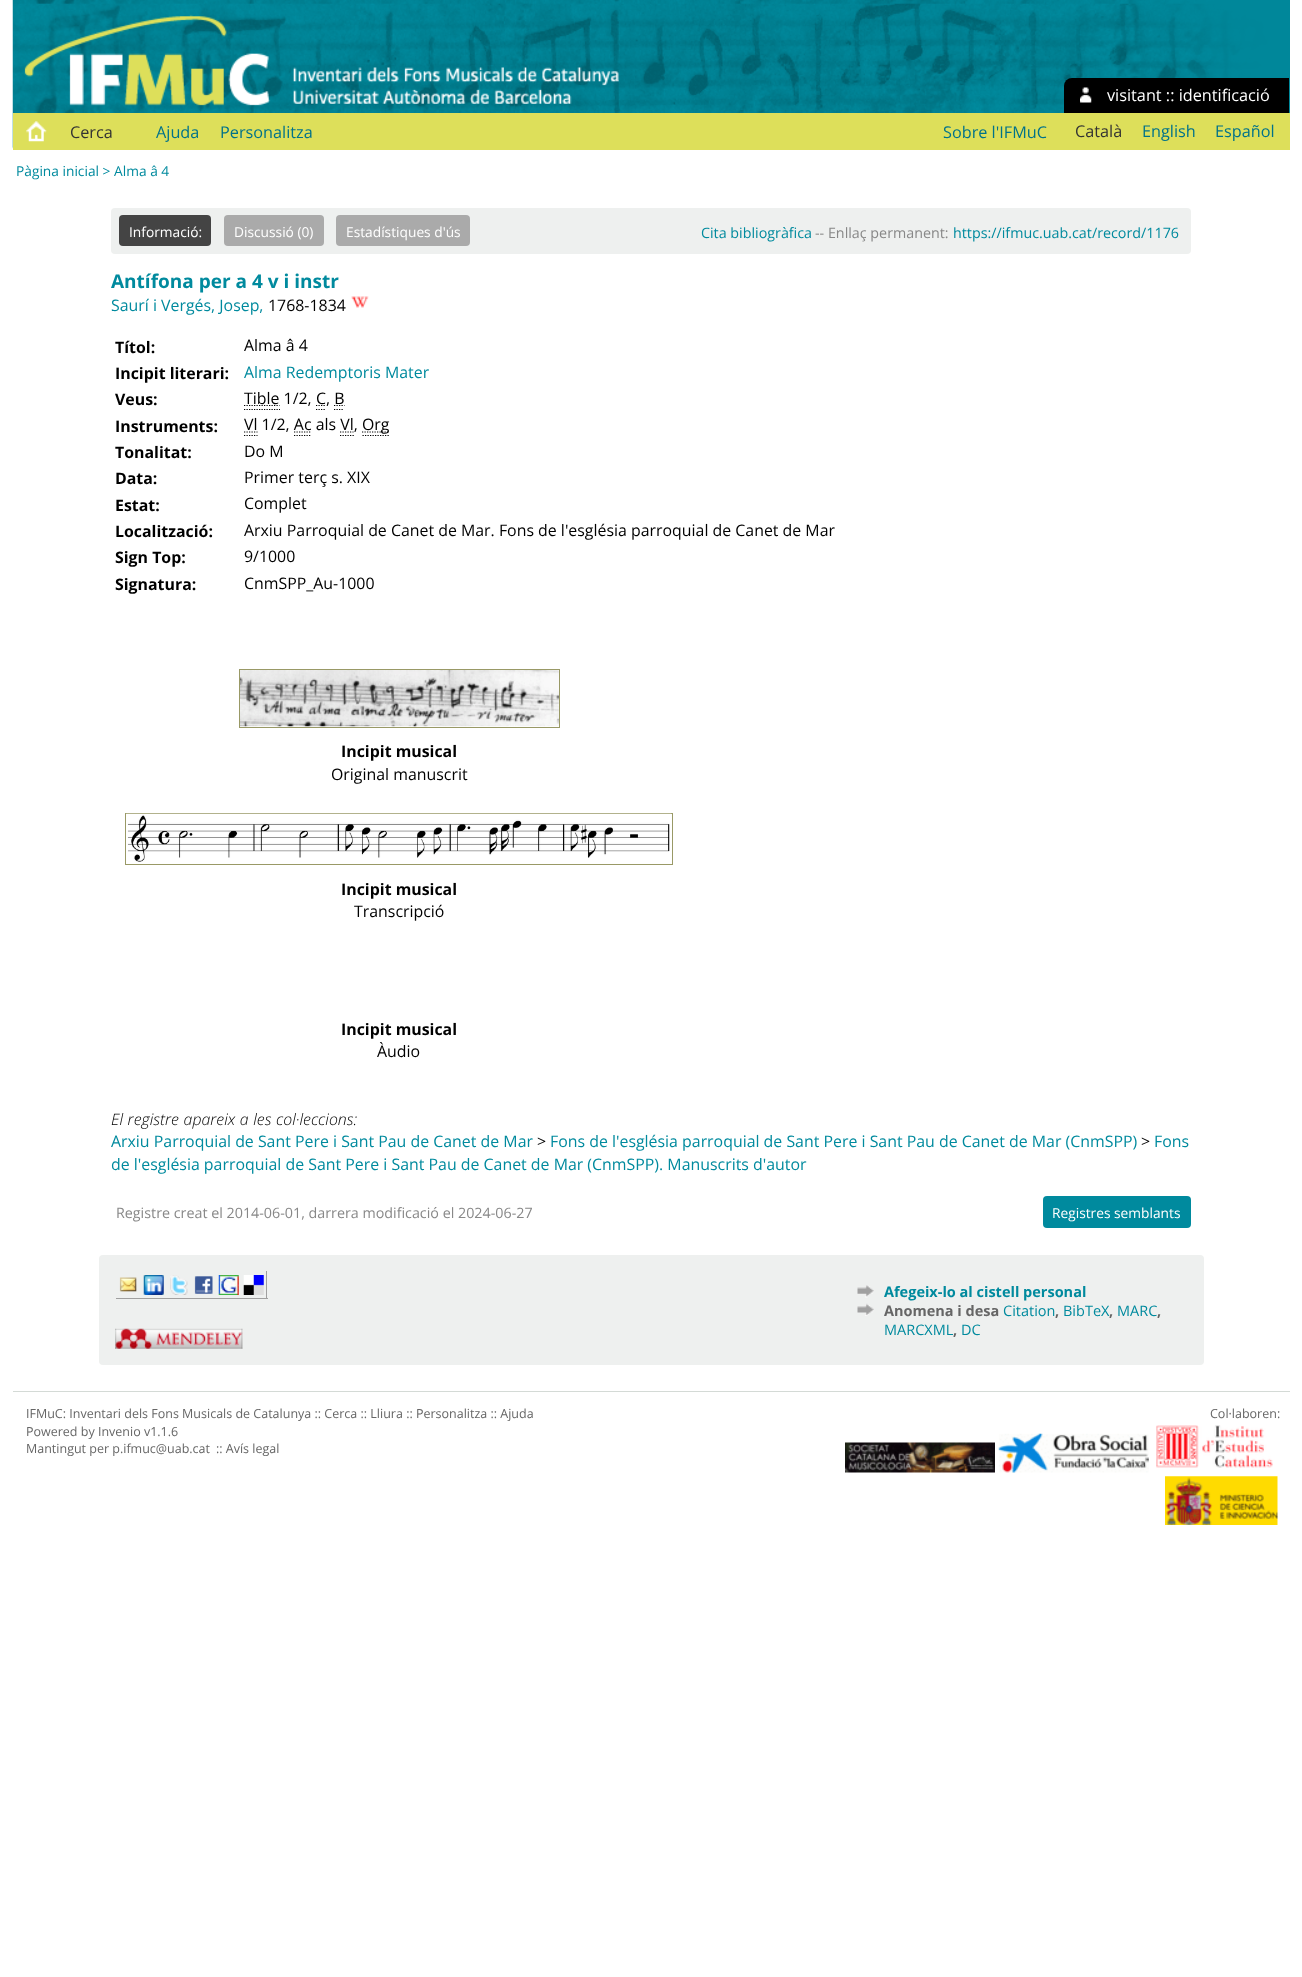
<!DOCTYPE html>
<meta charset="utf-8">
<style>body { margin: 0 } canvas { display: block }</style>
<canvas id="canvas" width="1302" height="1977"></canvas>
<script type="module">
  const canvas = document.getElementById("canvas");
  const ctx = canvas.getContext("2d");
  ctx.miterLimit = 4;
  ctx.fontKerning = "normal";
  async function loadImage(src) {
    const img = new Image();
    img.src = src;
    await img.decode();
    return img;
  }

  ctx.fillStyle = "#ffffff";
  ctx.fillRect(0, 0, 1302, 1977);
  ctx.drawImage(await loadImage("img1.png"), 12, 0, 1278, 149);
  ctx.fillStyle = "#000000";
  ctx.beginPath();
  ctx.roundRect(1064, 78, 225, 35, [8, 0, 0, 0]);
  ctx.fill();
  ctx.drawImage(await loadImage("img2.png"), 1080, 87, 12, 16);
  ctx.font = "16.25px Open Sans";
  ctx.fillStyle = "#ffffff";
  ctx.fillText("visitant :: identificació", 1107, 101);
  ctx.fillStyle = "#dddf5a";
  ctx.fillRect(13, 113, 1277, 37);
  ctx.drawImage(await loadImage("img3.png"), 26, 121, 21, 21);
  ctx.fillStyle = "#333333";
  ctx.fillText("Cerca", 70, 138);
  ctx.fillStyle = "#00728a";
  ctx.fillText("Ajuda", 156, 138);
  ctx.fillText("Personalitza", 220, 138);
  ctx.fillText("Sobre l'IFMuC", 943, 138);
  ctx.fillStyle = "#333333";
  ctx.fillText("Català", 1075, 137);
  ctx.fillStyle = "#00728a";
  ctx.fillText("English", 1142, 137);
  ctx.fillText("Español", 1215, 137);
  ctx.font = "13.75px Open Sans";
  ctx.fillStyle = "#008a9e";
  ctx.fillText("Pàgina inicial > Alma â 4", 16, 176);
  ctx.fillStyle = "#eef0ef";
  ctx.beginPath();
  ctx.roundRect(111, 208, 1080, 46, 4);
  ctx.fill();
  ctx.fillStyle = "#444444";
  ctx.beginPath();
  ctx.roundRect(119, 215, 92, 31, 4);
  ctx.fill();
  ctx.fillStyle = "#ffffff";
  ctx.fillText("Informació:", 129, 237);
  ctx.fillStyle = "#aaaaaa";
  ctx.beginPath();
  ctx.roundRect(224, 215, 100, 31, 4);
  ctx.fill();
  ctx.fillStyle = "#ffffff";
  ctx.fillText("Discussió (0)", 234, 237);
  ctx.fillStyle = "#aaaaaa";
  ctx.beginPath();
  ctx.roundRect(336, 215, 134, 31, 4);
  ctx.fill();
  ctx.fillStyle = "#ffffff";
  ctx.fillText("Estadístiques d'ús", 346, 237);
  ctx.font = "14.3px Open Sans";
  ctx.fillStyle = "#008a9e";
  ctx.fillText("Cita bibliogràfica", 701, 238);
  ctx.fillStyle = "#888888";
  ctx.fillText("-- Enllaç permanent:", 815, 238);
  ctx.fillStyle = "#008a9e";
  ctx.fillText("https://ifmuc.uab.cat/record/1176", 953, 238);
  ctx.font = "bold 19px Open Sans";
  ctx.fillText("Antífona per a 4 v i instr", 111, 288);
  ctx.font = "15.9px Open Sans";
  ctx.fillText("Saurí i Vergés, Josep,", 111, 311);
  ctx.fillStyle = "#000000";
  ctx.fillText("1768-1834", 268, 311);
  ctx.drawImage(await loadImage("img4.png"), 351, 296, 18, 12);
  ctx.font = "bold 15.9px Open Sans";
  ctx.fillText("Títol:", 115, 353);
  ctx.font = "15.9px Open Sans";
  ctx.fillText("Alma â 4", 244, 351);
  ctx.font = "bold 15.9px Open Sans";
  ctx.fillText("Incipit literari:", 115, 379);
  ctx.font = "15.9px Open Sans";
  ctx.fillStyle = "#008a9e";
  ctx.fillText("Alma Redemptoris Mater", 244, 378);
  ctx.font = "bold 15.9px Open Sans";
  ctx.fillStyle = "#000000";
  ctx.fillText("Veus:", 115, 405);
  ctx.beginPath();
  ctx.moveTo(244, 409.5);
  ctx.lineTo(280, 409.5);
  ctx.moveTo(244, 405.5);
  ctx.lineTo(279.5, 405.5);
  ctx.strokeStyle = "#000000";
  ctx.lineWidth = 1.2;
  ctx.setLineDash([1.25, 1.25]);
  ctx.stroke();
  ctx.font = "15.9px Open Sans";
  ctx.fillText("Tible 1/2,", 244, 404);
  ctx.beginPath();
  ctx.moveTo(316, 409.5);
  ctx.lineTo(326, 409.5);
  ctx.moveTo(316, 405.5);
  ctx.lineTo(326, 405.5);
  ctx.stroke();
  ctx.fillText("C, B", 316, 404);
  ctx.beginPath();
  ctx.moveTo(334, 409.5);
  ctx.lineTo(344, 409.5);
  ctx.moveTo(334, 405.5);
  ctx.lineTo(344.5, 405.5);
  ctx.stroke();
  ctx.font = "bold 15.9px Open Sans";
  ctx.fillText("Instruments:", 115, 432);
  ctx.beginPath();
  ctx.moveTo(244, 435.5);
  ctx.lineTo(257.5, 435.5);
  ctx.moveTo(244, 432);
  ctx.lineTo(257.5, 432);
  ctx.stroke();
  ctx.font = "15.9px Open Sans";
  ctx.fillText("Vl 1/2, Ac als Vl,", 244, 430);
  ctx.beginPath();
  ctx.moveTo(362.5, 435.5);
  ctx.lineTo(390, 435.5);
  ctx.moveTo(362, 432);
  ctx.lineTo(389.5, 432);
  ctx.stroke();
  ctx.fillText("Org", 362, 430);
  ctx.beginPath();
  ctx.moveTo(294, 435.5);
  ctx.lineTo(311, 435.5);
  ctx.moveTo(294, 432);
  ctx.lineTo(311.5, 432);
  ctx.moveTo(340, 435.5);
  ctx.lineTo(354, 435.5);
  ctx.moveTo(340, 432);
  ctx.lineTo(353.5, 432);
  ctx.stroke();
  ctx.font = "bold 15.9px Open Sans";
  ctx.fillText("Tonalitat:", 115, 458);
  ctx.font = "15.9px Open Sans";
  ctx.fillText("Do M", 244, 457);
  ctx.font = "bold 15.9px Open Sans";
  ctx.fillText("Data:", 115, 484);
  ctx.font = "15.9px Open Sans";
  ctx.fillText("Primer terç s. XIX", 244, 483);
  ctx.font = "bold 15.9px Open Sans";
  ctx.fillText("Estat:", 115, 511);
  ctx.font = "15.9px Open Sans";
  ctx.fillText("Complet", 244, 509);
  ctx.font = "bold 15.9px Open Sans";
  ctx.fillText("Localització:", 115, 537);
  ctx.font = "15.9px Open Sans";
  ctx.fillText("Arxiu Parroquial de Canet de Mar. Fons de l'església parroquial de Canet de Mar", 244, 536);
  ctx.font = "bold 15.9px Open Sans";
  ctx.fillText("Sign Top:", 115, 563);
  ctx.font = "15.9px Open Sans";
  ctx.fillText("9/1000", 244, 562);
  ctx.font = "bold 15.9px Open Sans";
  ctx.fillText("Signatura:", 115, 590);
  ctx.font = "15.9px Open Sans";
  ctx.fillText("CnmSPP_Au-1000", 244, 589);
  ctx.strokeStyle = "#999966";
  ctx.lineWidth = 1;
  ctx.setLineDash([]);
  ctx.strokeRect(239.5, 669.5, 320, 58);
  ctx.drawImage(await loadImage("img5.png"), 240, 670, 319, 57);
  ctx.font = "bold 15.9px Open Sans";
  ctx.fillText("Incipit musical", 341, 757);
  ctx.font = "15.9px Open Sans";
  ctx.fillText("Original manuscrit", 331, 780);
  ctx.strokeRect(125.5, 813.5, 547, 51);
  ctx.drawImage(await loadImage("img6.png"), 126, 813, 546, 49);
  ctx.font = "bold 15.9px Open Sans";
  ctx.fillText("Incipit musical", 341, 895);
  ctx.font = "15.9px Open Sans";
  ctx.fillText("Transcripció", 354, 917);
  ctx.font = "bold 15.9px Open Sans";
  ctx.fillText("Incipit musical", 341, 1035);
  ctx.font = "15.9px Open Sans";
  ctx.fillText("Àudio", 377, 1057);
  ctx.wordSpacing = "0.5px";
  ctx.font = "italic 300 15.9px Open Sans";
  ctx.fillText("El registre apareix a les col·leccions:", 111, 1125);
  ctx.wordSpacing = "0px";
  ctx.font = "15.9px Open Sans";
  ctx.fillStyle = "#008a9e";
  ctx.fillText("Arxiu Parroquial de Sant Pere i Sant Pau de Canet de Mar", 111, 1147);
  ctx.fillStyle = "#000000";
  ctx.fillText(">", 537, 1147);
  ctx.fillStyle = "#008a9e";
  ctx.fillText("Fons de l'església parroquial de Sant Pere i Sant Pau de Canet de Mar (CnmSPP)", 550, 1147);
  ctx.fillStyle = "#000000";
  ctx.fillText(">", 1141, 1147);
  ctx.fillStyle = "#008a9e";
  ctx.fillText("Fons", 1154, 1147);
  ctx.fillText("de l'església parroquial de Sant Pere i Sant Pau de Canet de Mar (CnmSPP). Manuscrits d'autor", 111, 1170);
  ctx.font = "14.3px Open Sans";
  ctx.fillStyle = "#888888";
  ctx.fillText("Registre creat el 2014-06-01, darrera modificació el 2024-06-27", 116, 1218);
  ctx.fillStyle = "#008a9e";
  ctx.beginPath();
  ctx.roundRect(1043, 1196, 148, 32, 4);
  ctx.fill();
  ctx.font = "13.75px Open Sans";
  ctx.fillStyle = "#ffffff";
  ctx.fillText("Registres semblants", 1052, 1218);
  ctx.fillStyle = "#eef0ef";
  ctx.beginPath();
  ctx.roundRect(99, 1255, 1105, 110, 4);
  ctx.fill();
  ctx.fillStyle = "#9f9f9f";
  ctx.fillRect(266, 1271, 1, 28);
  ctx.fillRect(115, 1298, 153, 1);
  ctx.fillStyle = "#eeeeee";
  ctx.fillRect(115, 1298, 1, 1);
  ctx.drawImage(await loadImage("img7.png"), 119, 1277, 18, 15);
  ctx.drawImage(await loadImage("img8.png"), 143, 1275, 21, 20);
  ctx.drawImage(await loadImage("img9.png"), 170, 1275, 18, 20);
  ctx.drawImage(await loadImage("img10.png"), 194, 1276, 19, 18);
  ctx.drawImage(await loadImage("img11.png"), 218, 1275, 21, 20);
  ctx.drawImage(await loadImage("img12.png"), 243, 1275, 21, 20);
  ctx.drawImage(await loadImage("img13.png"), 115, 1328, 128, 21);
  ctx.drawImage(await loadImage("img14.png"), 857, 1285, 17, 13);
  ctx.font = "bold 14.5px Open Sans";
  ctx.fillStyle = "#008a9e";
  ctx.fillText("Afegeix-lo al cistell personal", 884, 1297);
  ctx.drawImage(await loadImage("img15.png"), 857, 1303, 17, 13);
  ctx.fillStyle = "#666666";
  ctx.fillText("Anomena i desa", 884, 1316);
  ctx.font = "14.5px Open Sans";
  ctx.fillStyle = "#008a9e";
  ctx.fillText("Citation", 1003, 1316);
  ctx.font = "bold 14.5px Open Sans";
  ctx.fillStyle = "#666666";
  ctx.fillText(",", 1055, 1316);
  ctx.font = "14.5px Open Sans";
  ctx.fillStyle = "#008a9e";
  ctx.fillText("BibTeX", 1063, 1316);
  ctx.font = "bold 14.5px Open Sans";
  ctx.fillStyle = "#666666";
  ctx.fillText(",", 1109, 1316);
  ctx.font = "14.5px Open Sans";
  ctx.fillStyle = "#008a9e";
  ctx.fillText("MARC", 1117, 1316);
  ctx.font = "bold 14.5px Open Sans";
  ctx.fillStyle = "#666666";
  ctx.fillText(",", 1157, 1316);
  ctx.font = "14.5px Open Sans";
  ctx.fillStyle = "#008a9e";
  ctx.fillText("MARCXML", 884, 1335);
  ctx.font = "bold 14.5px Open Sans";
  ctx.fillStyle = "#666666";
  ctx.fillText(",", 953, 1335);
  ctx.font = "14.5px Open Sans";
  ctx.fillStyle = "#008a9e";
  ctx.fillText("DC", 961, 1335);
  ctx.fillStyle = "#d4dad6";
  ctx.fillRect(13, 1391, 1277, 1);
  ctx.font = "12.5px Open Sans";
  ctx.fillStyle = "#666666";
  ctx.fillText("IFMuC: Inventari dels Fons Musicals de Catalunya :: Cerca :: Lliura :: Personalitza :: Ajuda", 26, 1418);
  ctx.fillText("Powered by Invenio v1.1.6", 26, 1436);
  ctx.fillText("Mantingut per p.ifmuc@uab.cat", 26, 1453);
  ctx.fillText(":: Avís legal", 216, 1453);
  ctx.fillText("Col·laboren:", 1210, 1418);
  ctx.drawImage(await loadImage("img16.png"), 845, 1442, 150, 31);
  ctx.drawImage(await loadImage("img17.png"), 998, 1433, 151, 40);
  ctx.drawImage(await loadImage("img18.png"), 1156, 1425, 117, 43);
  ctx.drawImage(await loadImage("img19.png"), 1165, 1476, 113, 49);
</script>
